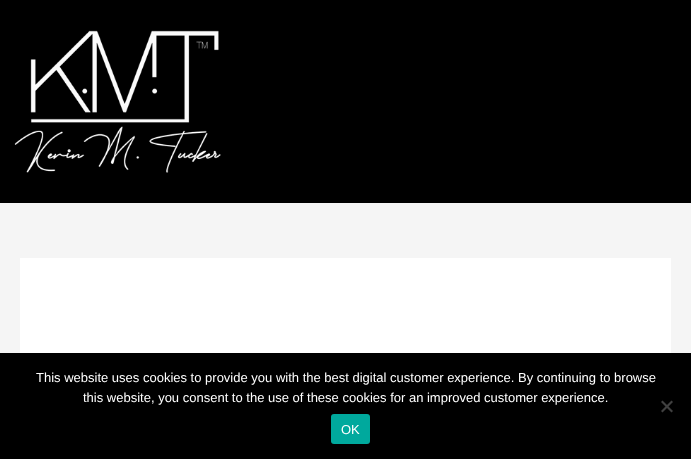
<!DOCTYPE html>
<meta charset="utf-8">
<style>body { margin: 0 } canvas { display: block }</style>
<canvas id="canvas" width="691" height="459"></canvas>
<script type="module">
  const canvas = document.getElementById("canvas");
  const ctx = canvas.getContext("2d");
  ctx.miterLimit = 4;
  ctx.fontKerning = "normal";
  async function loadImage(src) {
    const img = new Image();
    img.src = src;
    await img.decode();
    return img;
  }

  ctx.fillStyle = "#f5f5f5";
  ctx.fillRect(0, 0, 691, 459);
  ctx.fillStyle = "#000000";
  ctx.fillRect(0, 0, 691, 203);
  ctx.drawImage(await loadImage("img1.png"), 14, 30, 207, 143);
  ctx.fillStyle = "#ffffff";
  ctx.fillRect(20, 258, 651, 95);
  ctx.fillStyle = "#000000";
  ctx.fillRect(0, 353, 691, 106);
  ctx.font = "13px Liberation Sans";
  ctx.fillStyle = "#ffffff";
  ctx.fillText("This website uses cookies to provide you with the best digital customer experience. By continuing to browse", 36, 382);
  ctx.fillText("this website, you consent to the use of these cookies for an improved customer experience.", 83, 402);
  ctx.fillStyle = "#404040";
  ctx.beginPath();
  ctx.moveTo(671.5, 400.5);
  ctx.lineTo(673, 402);
  ctx.lineTo(662.5, 412.5);
  ctx.lineTo(661, 411);
  ctx.closePath();
  ctx.fill();
  ctx.beginPath();
  ctx.moveTo(661, 402);
  ctx.lineTo(662.5, 400.5);
  ctx.lineTo(673, 411);
  ctx.lineTo(671.5, 412.5);
  ctx.closePath();
  ctx.fill();
  ctx.fillStyle = "#00a99d";
  ctx.beginPath();
  ctx.roundRect(331, 414, 39, 30, 3);
  ctx.fill();
  ctx.fillStyle = "#ffffff";
  ctx.fillText("OK", 341, 434);
</script>
